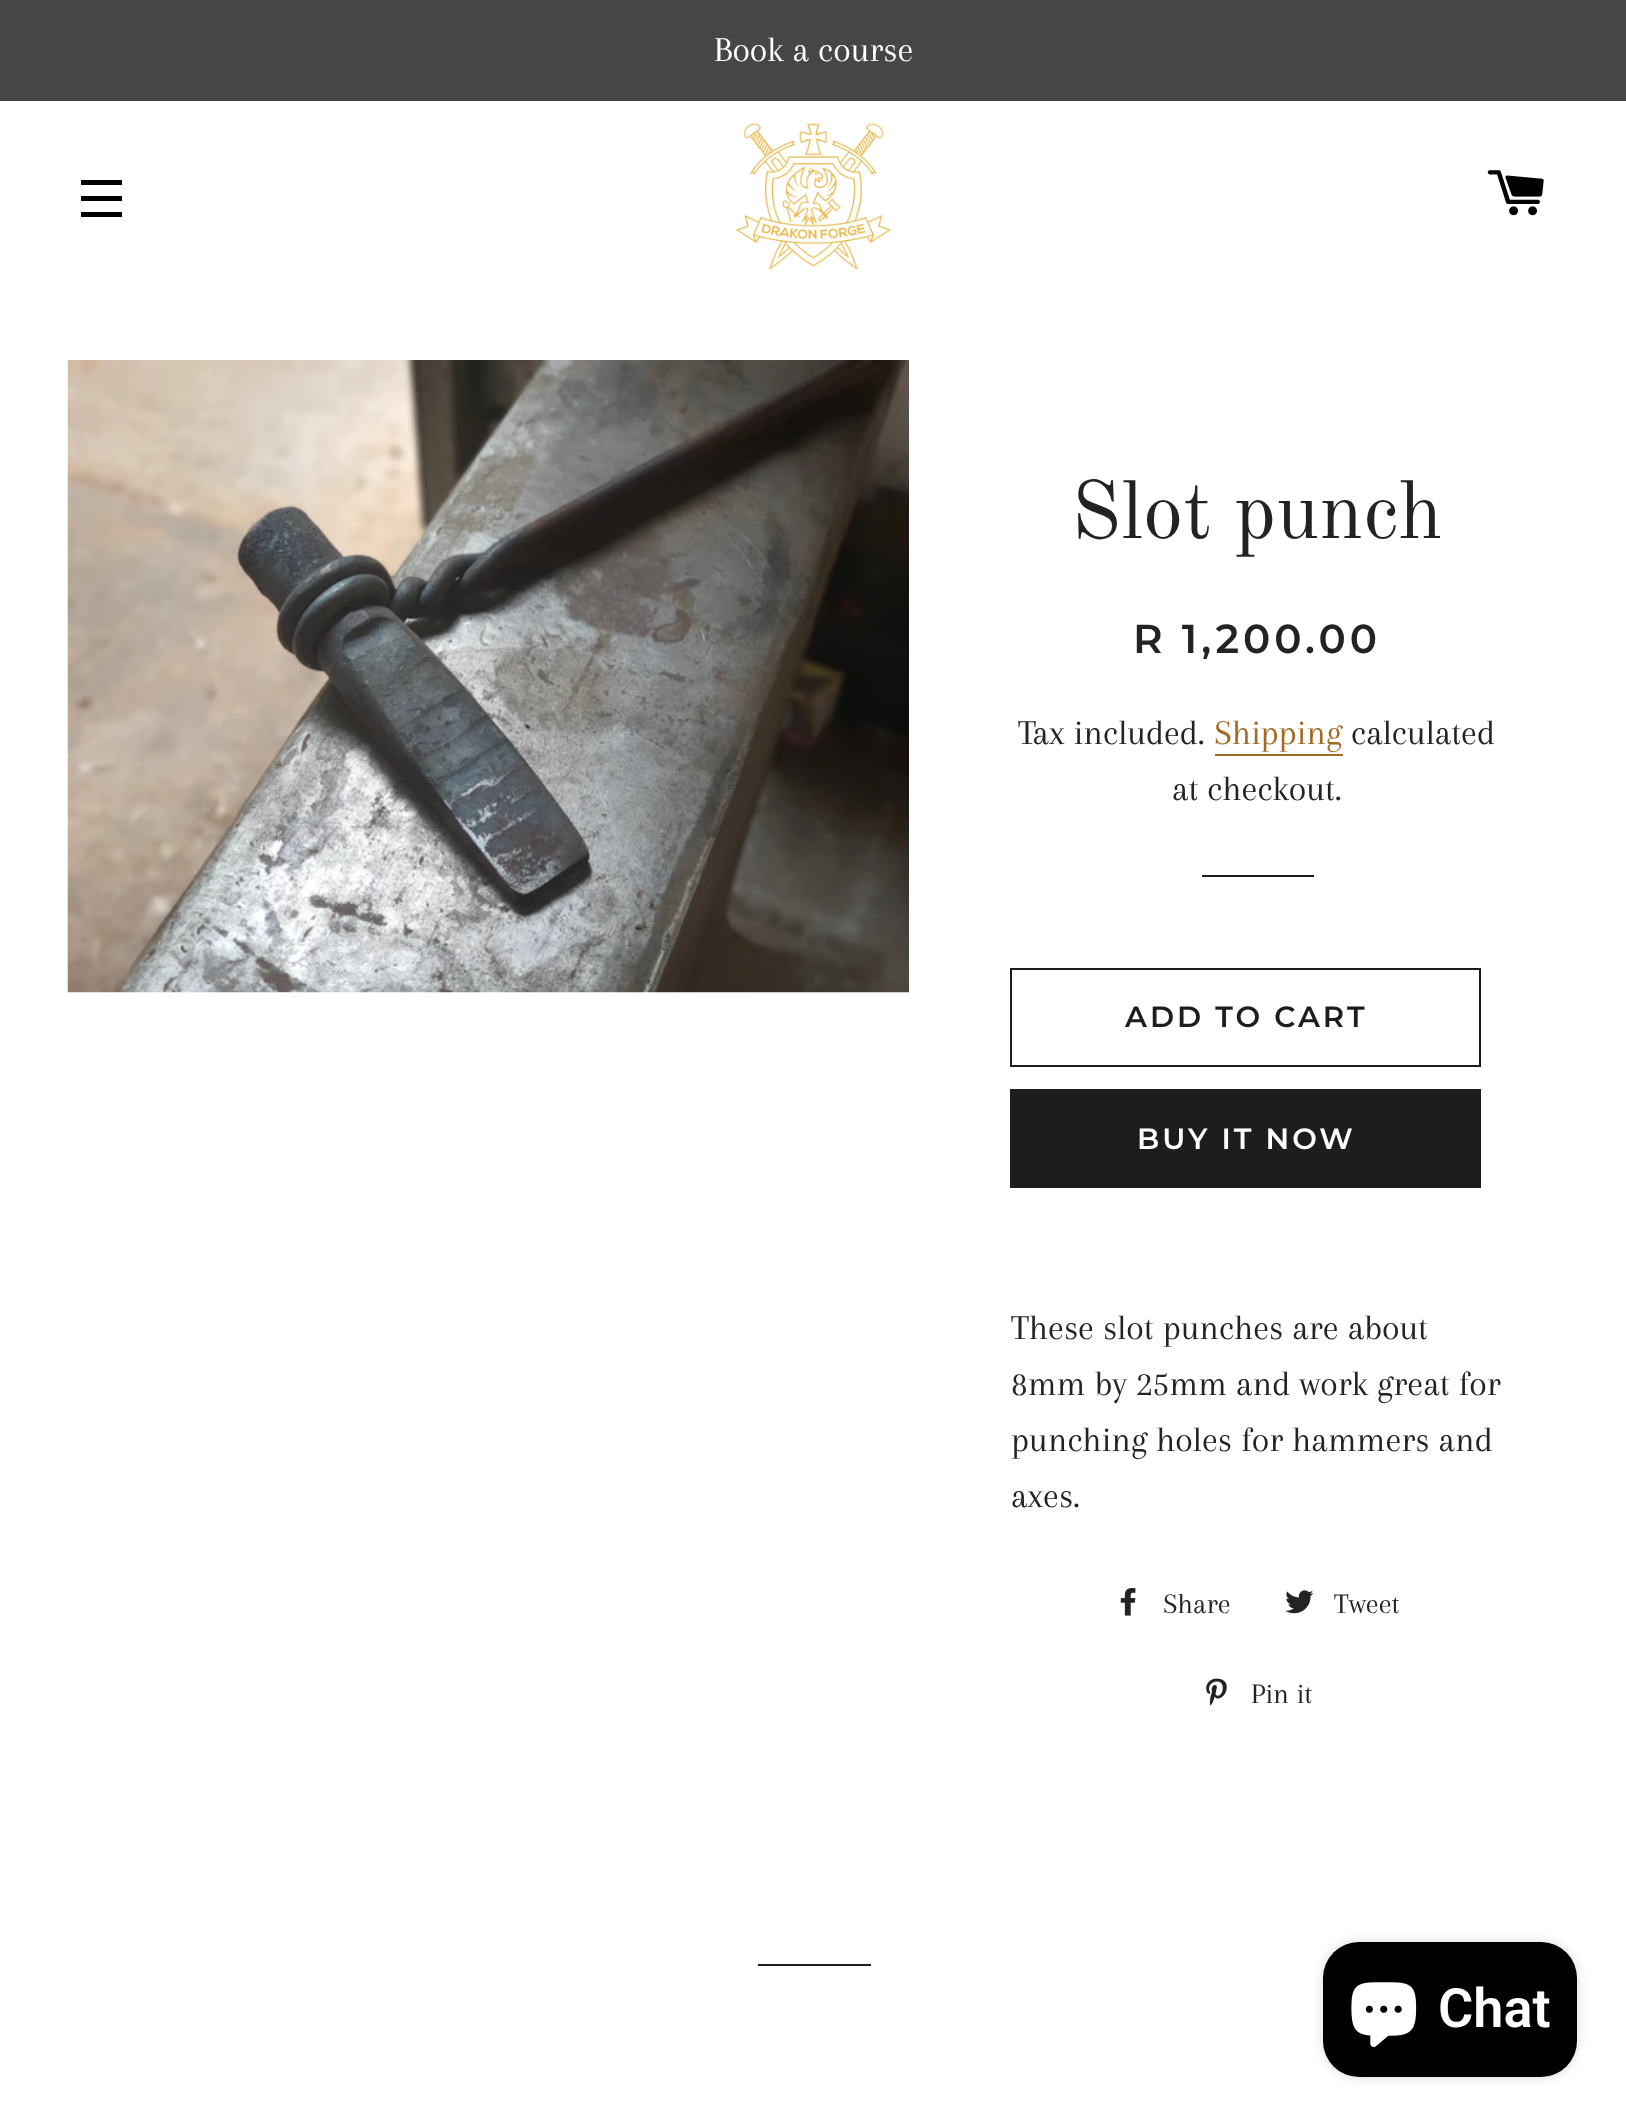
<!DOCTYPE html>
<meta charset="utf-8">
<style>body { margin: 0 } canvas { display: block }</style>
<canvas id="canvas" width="1626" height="2123"></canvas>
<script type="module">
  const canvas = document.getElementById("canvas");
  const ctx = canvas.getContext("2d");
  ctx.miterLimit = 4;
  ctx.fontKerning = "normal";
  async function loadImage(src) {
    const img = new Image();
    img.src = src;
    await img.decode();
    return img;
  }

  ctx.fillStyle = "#ffffff";
  ctx.fillRect(0, 0, 1626, 2123);
  ctx.fillStyle = "#454747";
  ctx.fillRect(0, 0, 1626, 101);
  ctx.font = "36px Arapey";
  ctx.fillStyle = "#ffffff";
  ctx.fillText("Book a course", 714, 61);
  ctx.fillStyle = "#000000";
  ctx.fillRect(81, 180, 41, 5);
  ctx.fillRect(81, 196, 41, 5);
  ctx.fillRect(81, 212, 41, 5);
  ctx.drawImage(await loadImage("img1.png"), 735, 123, 156, 147);
  ctx.drawImage(await loadImage("img2.png"), 1487, 170, 57, 46);
  ctx.drawImage(await loadImage("img3.png"), 67, 360, 842, 633);
  ctx.font = "81px Old Standard TT";
  ctx.fillStyle = "#222323";
  ctx.fillText("Slot punch", 1071, 538);
  ctx.letterSpacing = "4px";
  ctx.font = "600 40.5px Montserrat";
  ctx.fillText("R 1,200.00", 1133, 653);
  ctx.letterSpacing = "0px";
  ctx.font = "36px Arapey";
  ctx.fillText("Tax included.", 1018, 744);
  ctx.fillStyle = "#a26b25";
  ctx.fillText("Shipping", 1214, 744);
  ctx.fillRect(1215, 754, 128, 2);
  ctx.fillStyle = "#222323";
  ctx.fillText("calculated", 1351, 744);
  ctx.fillText("at checkout.", 1172, 800);
  ctx.fillStyle = "#1c1d1d";
  ctx.fillRect(1202, 875, 112, 2);
  ctx.strokeStyle = "#1c1d1d";
  ctx.lineWidth = 2;
  ctx.strokeRect(1011, 969, 469, 97);
  ctx.letterSpacing = "3px";
  ctx.font = "600 29.25px Montserrat";
  ctx.fillText("ADD TO CART", 1125, 1027);
  ctx.fillRect(1010, 1089, 471, 99);
  ctx.fillStyle = "#ffffff";
  ctx.fillText("BUY IT NOW", 1137, 1149);
  ctx.letterSpacing = "0px";
  ctx.font = "36px Arapey";
  ctx.fillStyle = "#222323";
  ctx.fillText("These slot punches are about", 1011, 1339);
  ctx.fillText("8mm by 25mm and work great for", 1011, 1395);
  ctx.fillText("punching holes for hammers and", 1011, 1451);
  ctx.fillText("axes.", 1011, 1507);
  ctx.drawImage(await loadImage("img4.png"), 1120, 1588, 16, 28);
  ctx.font = "29.25px Arapey";
  ctx.fillText("Share", 1163, 1613);
  ctx.drawImage(await loadImage("img5.png"), 1285, 1590, 29, 24);
  ctx.fillText("Tweet", 1334, 1613);
  ctx.drawImage(await loadImage("img6.png"), 1206, 1678, 21, 28);
  ctx.fillText("Pin it", 1251, 1703);
  ctx.fillStyle = "#1c1d1d";
  ctx.fillRect(758, 1964, 113, 2);
  ctx.fillStyle = "rgba(0, 0, 0, 0.15)";
  ctx.filter = "blur(5.5px)";
  ctx.beginPath();
  ctx.roundRect(1323, 1942, 254, 135, 36);
  ctx.fill();
  ctx.filter = "none";
  ctx.fillStyle = "#000000";
  ctx.beginPath();
  ctx.roundRect(1323, 1942, 254, 135, 36);
  ctx.fill();
  ctx.drawImage(await loadImage("img7.png"), 1351, 1982, 66, 65);
  ctx.font = "600 54px Roboto";
  ctx.fillStyle = "#ffffff";
  ctx.fillText("Chat", 1438, 2027);
</script>
